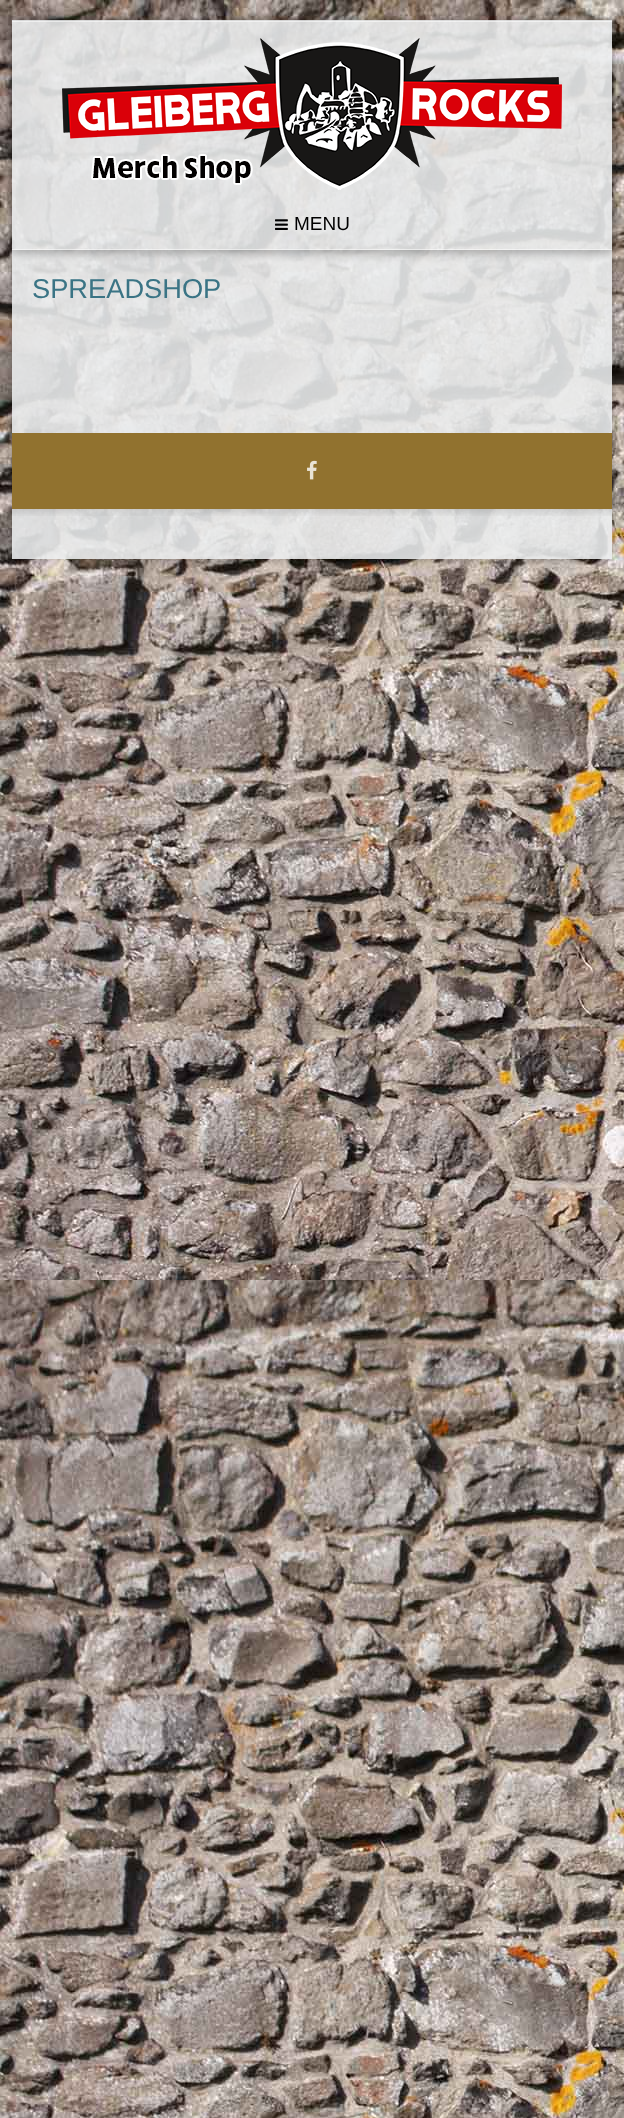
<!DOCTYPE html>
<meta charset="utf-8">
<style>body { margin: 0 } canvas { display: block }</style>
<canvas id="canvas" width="624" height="2118"></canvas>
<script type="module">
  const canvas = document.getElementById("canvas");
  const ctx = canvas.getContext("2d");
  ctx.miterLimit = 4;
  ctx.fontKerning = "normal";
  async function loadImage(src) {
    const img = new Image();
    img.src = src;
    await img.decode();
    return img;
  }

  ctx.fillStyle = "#ffffff";
  ctx.fillRect(0, 0, 624, 2118);
  ctx.drawImage(await loadImage("img1.png"), 0, 0, 624, 2118);
  ctx.save();
  ctx.beginPath();
  ctx.moveTo(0, 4);
  ctx.lineTo(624, 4);
  ctx.lineTo(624, 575);
  ctx.lineTo(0, 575);
  ctx.closePath();
  ctx.moveTo(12, 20);
  ctx.lineTo(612, 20);
  ctx.lineTo(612, 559);
  ctx.lineTo(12, 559);
  ctx.closePath();
  ctx.clip("evenodd");
  ctx.fillStyle = "rgba(0, 0, 0, 0.3)";
  ctx.filter = "blur(5px)";
  ctx.beginPath();
  ctx.rect(12, 20, 600, 539);
  ctx.fill();
  ctx.filter = "none";
  ctx.restore();
  ctx.fillStyle = "rgba(236, 238, 239, 0.88)";
  ctx.fillRect(12, 20, 600, 539);
  ctx.save();
  ctx.beginPath();
  ctx.moveTo(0, 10);
  ctx.lineTo(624, 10);
  ctx.lineTo(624, 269);
  ctx.lineTo(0, 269);
  ctx.closePath();
  ctx.moveTo(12, 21);
  ctx.lineTo(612, 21);
  ctx.lineTo(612, 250);
  ctx.lineTo(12, 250);
  ctx.closePath();
  ctx.clip("evenodd");
  ctx.fillStyle = "rgba(0, 0, 0, 0.25)";
  ctx.filter = "blur(4.5px)";
  ctx.beginPath();
  ctx.rect(12, 25, 600, 229);
  ctx.fill();
  ctx.filter = "none";
  ctx.restore();
  ctx.fillStyle = "rgba(255, 255, 255, 0.5)";
  ctx.fillRect(12, 21, 600, 1);
  ctx.fillRect(12, 249, 600, 1);
  ctx.drawImage(await loadImage("img2.png"), 62, 38, 500, 152);
  ctx.drawImage(await loadImage("img3.png"), 275, 219, 13, 11);
  ctx.font = "19px Liberation Sans";
  ctx.fillStyle = "#000000";
  ctx.fillText("MENU", 294, 230);
  ctx.font = "27.25px Liberation Sans";
  ctx.fillStyle = "#3a7485";
  ctx.fillText("SPREADSHOP", 32, 298);
  ctx.fillStyle = "#91722f";
  ctx.fillRect(12, 433, 600, 76);
  ctx.drawImage(await loadImage("img4.png"), 307, 460, 10, 20);
  ctx.drawImage(await loadImage("img5.png"), 12, 509, 600, 7);
  ctx.drawImage(await loadImage("img6.png"), 615, 2001, 6, 96);
</script>
